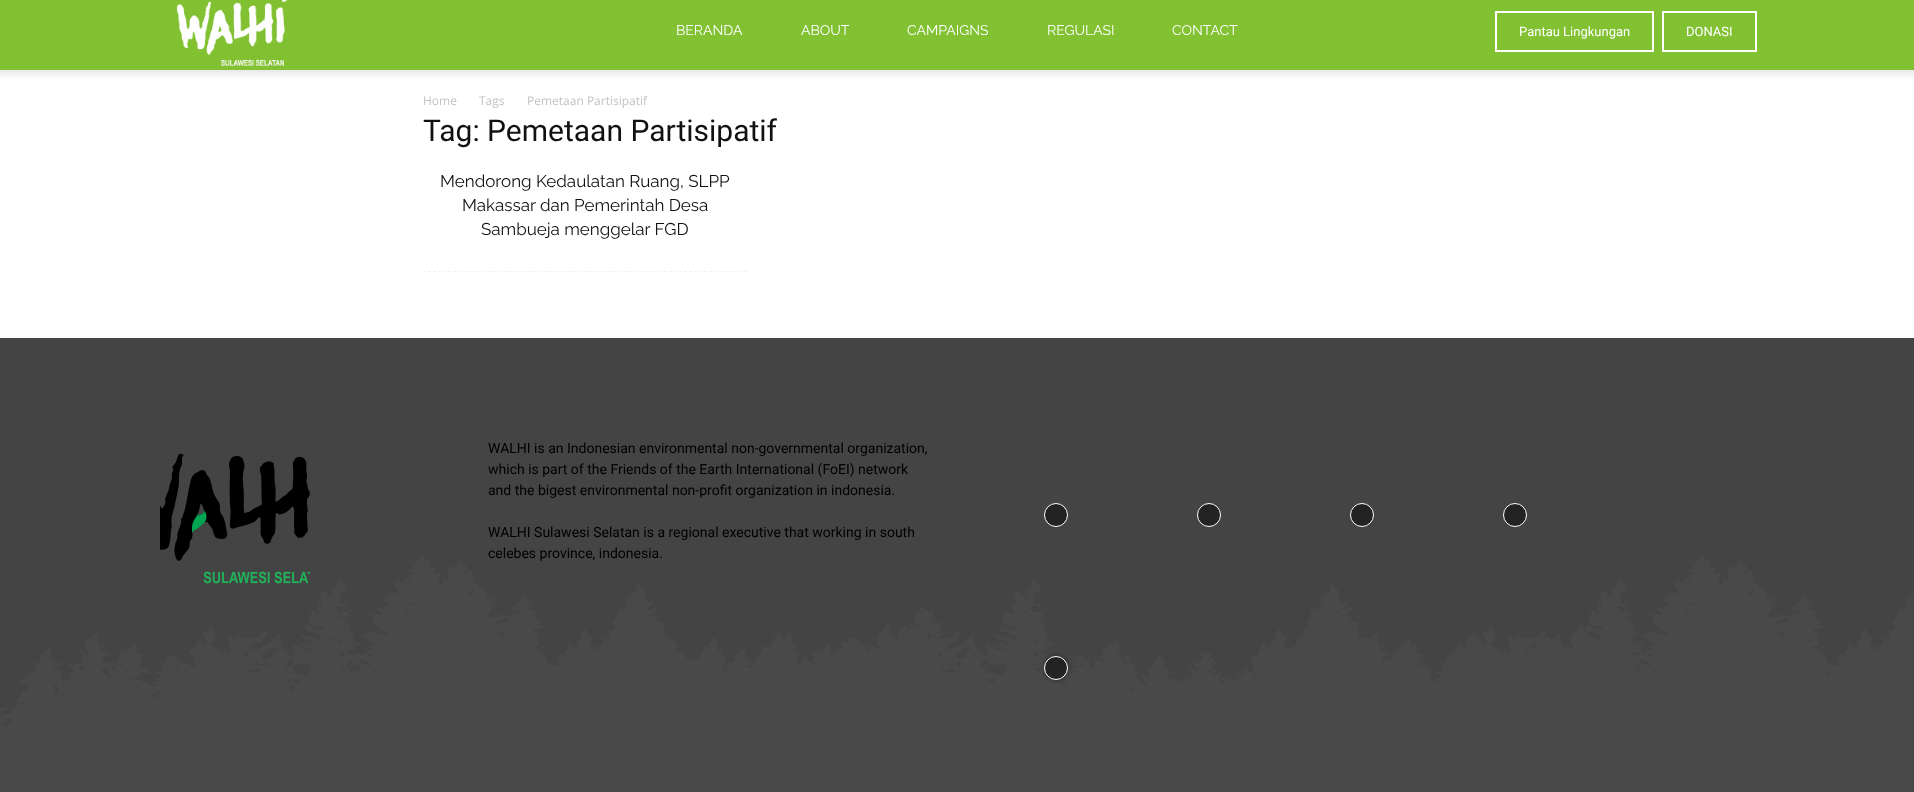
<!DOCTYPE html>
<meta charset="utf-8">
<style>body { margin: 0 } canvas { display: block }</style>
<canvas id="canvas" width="1914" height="792"></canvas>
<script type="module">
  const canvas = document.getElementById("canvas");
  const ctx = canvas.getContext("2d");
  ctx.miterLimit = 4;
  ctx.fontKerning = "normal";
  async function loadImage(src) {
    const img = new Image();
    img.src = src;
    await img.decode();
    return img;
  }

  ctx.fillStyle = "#ffffff";
  ctx.fillRect(0, 0, 1914, 792);
  ctx.fillStyle = "#81c132";
  ctx.fillRect(0, 0, 1914, 70);
  ctx.drawImage(await loadImage("img1.png"), 177, 0, 111, 67);
  ctx.font = "100 14px Raleway";
  ctx.fillStyle = "#ffffff";
  ctx.fillText("BERANDA", 676, 35);
  ctx.fillText("ABOUT", 801, 35);
  ctx.fillText("CAMPAIGNS", 907, 35);
  ctx.fillText("REGULASI", 1047, 35);
  ctx.fillText("CONTACT", 1172, 35);
  ctx.strokeStyle = "#ffffff";
  ctx.lineWidth = 2;
  ctx.strokeRect(1496, 12, 157, 39);
  ctx.font = "13px Roboto";
  ctx.fillText("Pantau Lingkungan", 1519, 36);
  ctx.strokeRect(1663, 12, 93, 39);
  ctx.fillText("DONASI", 1686, 36);
  ctx.drawImage(await loadImage("img2.png"), 0, 70, 1914, 9);
  ctx.font = "12px Open Sans";
  ctx.fillStyle = "#c3c3c3";
  ctx.fillText("Home", 423, 105);
  ctx.fillText("Tags", 479, 105);
  ctx.fillText("Pemetaan Partisipatif", 527, 105);
  ctx.font = "30px Roboto";
  ctx.fillStyle = "#111111";
  ctx.fillText("Tag: Pemetaan Partisipatif", 423, 141);
  ctx.beginPath();
  ctx.moveTo(423, 271.5);
  ctx.lineTo(747, 271.5);
  ctx.strokeStyle = "#f2f2f2";
  ctx.lineWidth = 1;
  ctx.setLineDash([3, 2.02]);
  ctx.stroke();
  ctx.font = "100 17px Raleway";
  ctx.fillText("Mendorong Kedaulatan Ruang, SLPP", 440, 187);
  ctx.fillText("Makassar dan Pemerintah Desa", 462, 211);
  ctx.fillText("Sambueja menggelar FGD", 481, 235);
  ctx.fillStyle = "#444444";
  ctx.fillRect(0, 338, 1914, 454);
  ctx.drawImage(await loadImage("img3.png"), 0, 557, 1914, 235);
  ctx.drawImage(await loadImage("img4.png"), 160, 453, 150, 131);
  ctx.font = "14px Roboto";
  ctx.fillStyle = "#000000";
  ctx.fillText("WALHI is an Indonesian environmental non-governmental organization,", 488, 453);
  ctx.fillText("which is part of the Friends of the Earth International (FoEI) network", 488, 474);
  ctx.fillText("and the bigest environmental non-profit organization in indonesia.", 488, 495);
  ctx.fillText("WALHI Sulawesi Selatan is a regional executive that working in south", 488, 537);
  ctx.fillText("celebes province, indonesia.", 488, 558);
  ctx.fillStyle = "rgba(0, 0, 0, 0.48)";
  ctx.beginPath();
  ctx.arc(1056, 515, 11.5, 0, Math.PI * 2);
  ctx.fill();
  ctx.strokeStyle = "#ffffff";
  ctx.setLineDash([]);
  ctx.stroke();
  ctx.beginPath();
  ctx.arc(1209, 515, 11.5, 0, Math.PI * 2);
  ctx.fill();
  ctx.stroke();
  ctx.beginPath();
  ctx.arc(1362, 515, 11.5, 0, Math.PI * 2);
  ctx.fill();
  ctx.stroke();
  ctx.beginPath();
  ctx.arc(1515, 515, 11.5, 0, Math.PI * 2);
  ctx.fill();
  ctx.stroke();
  ctx.save();
  ctx.beginPath();
  ctx.moveTo(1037, 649);
  ctx.lineTo(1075, 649);
  ctx.lineTo(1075, 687);
  ctx.lineTo(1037, 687);
  ctx.closePath();
  ctx.moveTo(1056, 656);
  ctx.bezierCurveTo(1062.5, 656, 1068, 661.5, 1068, 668);
  ctx.bezierCurveTo(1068, 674.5, 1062.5, 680, 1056, 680);
  ctx.bezierCurveTo(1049.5, 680, 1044, 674.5, 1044, 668);
  ctx.bezierCurveTo(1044, 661.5, 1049.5, 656, 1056, 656);
  ctx.closePath();
  ctx.clip("evenodd");
  ctx.fillStyle = "rgba(0, 0, 0, 0.4)";
  ctx.filter = "blur(2px)";
  ctx.beginPath();
  ctx.roundRect(1044, 656, 24, 24, 12);
  ctx.fill();
  ctx.filter = "none";
  ctx.restore();
  ctx.beginPath();
  ctx.arc(1056, 668, 11.5, 0, Math.PI * 2);
  ctx.fill();
  ctx.stroke();
</script>
